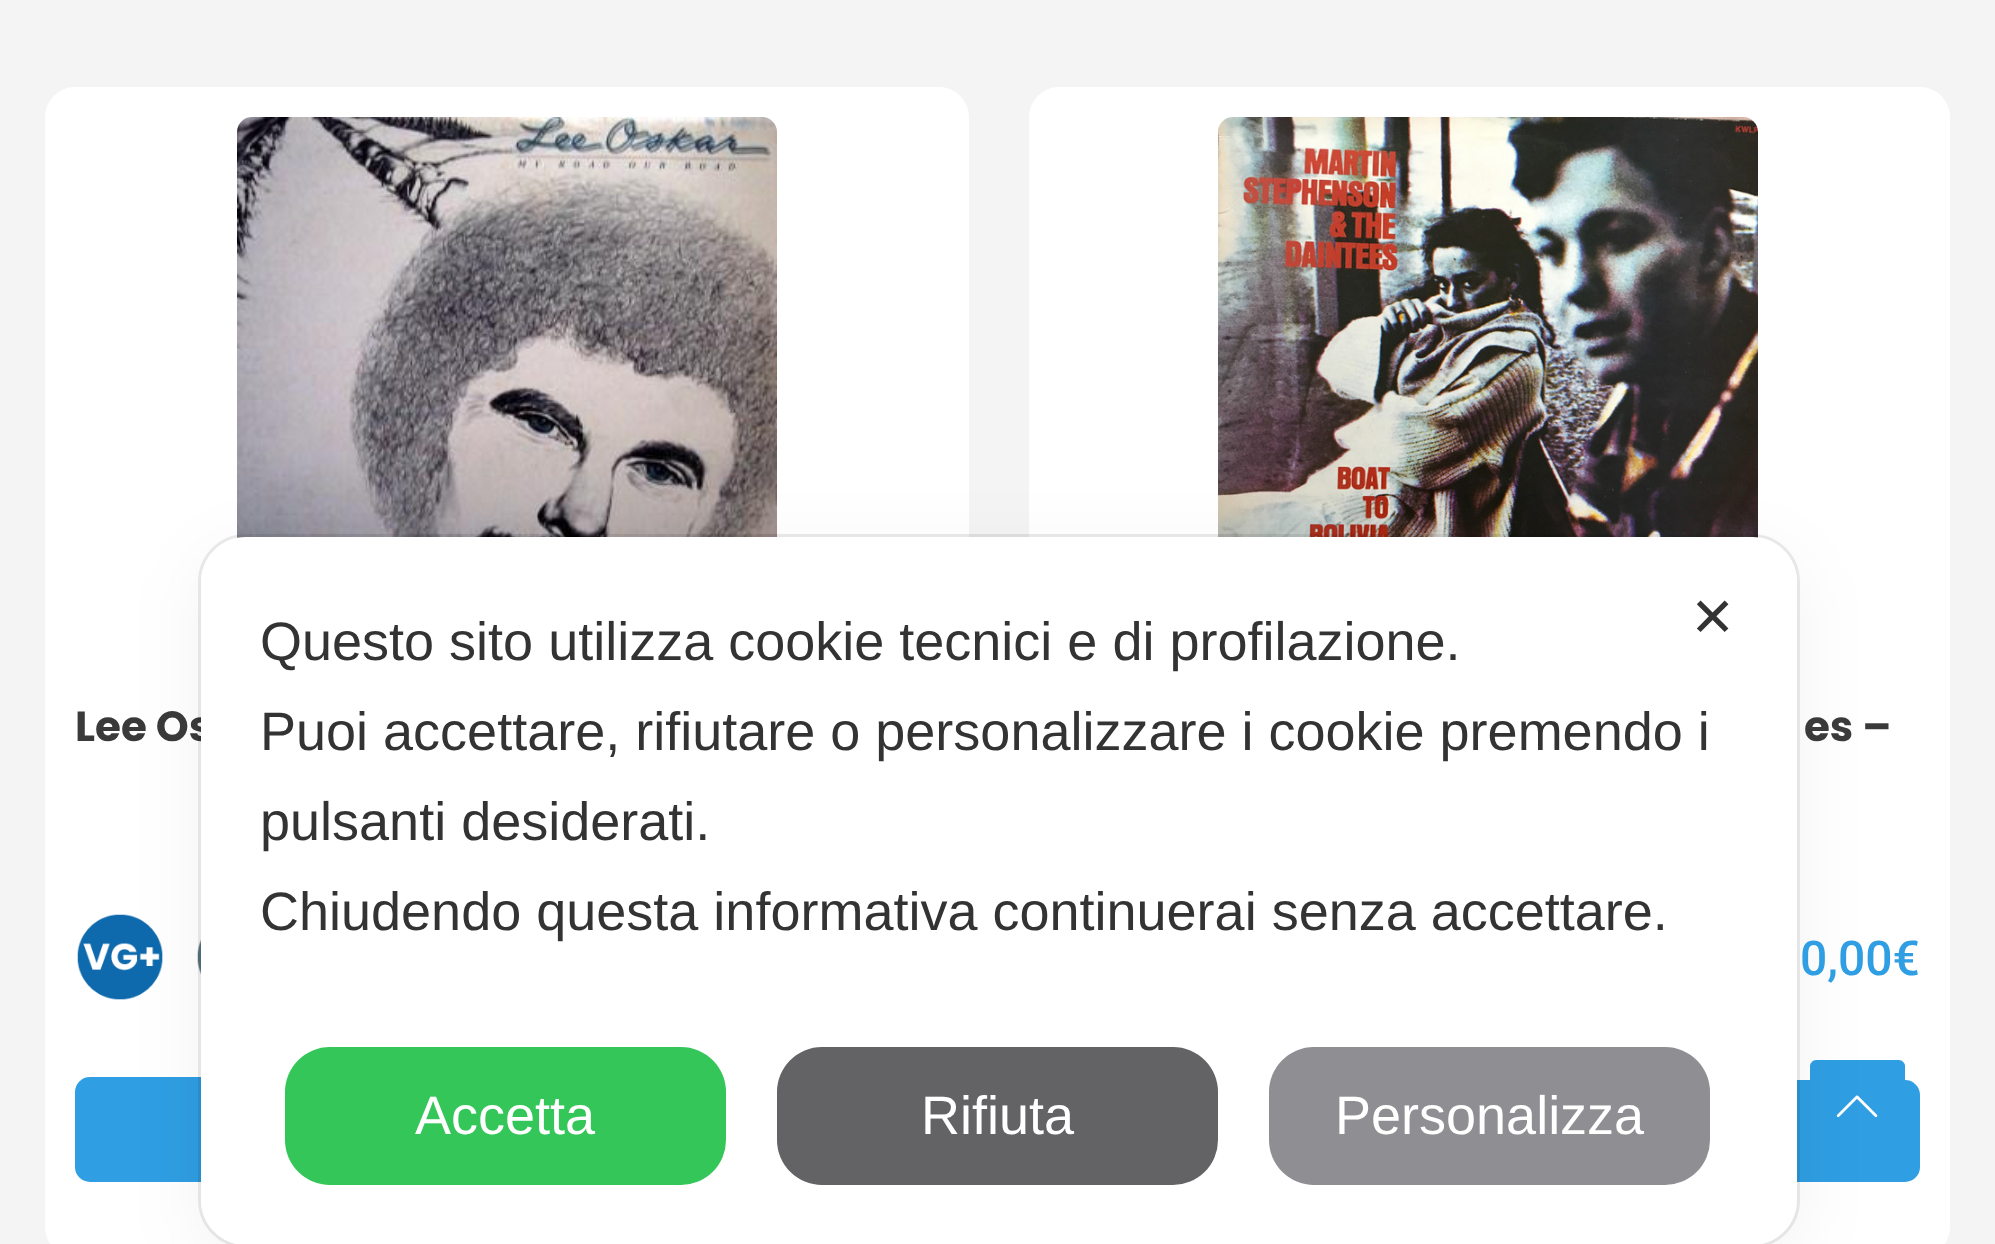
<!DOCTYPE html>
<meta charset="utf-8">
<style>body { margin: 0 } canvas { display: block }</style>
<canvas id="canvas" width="1995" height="1244"></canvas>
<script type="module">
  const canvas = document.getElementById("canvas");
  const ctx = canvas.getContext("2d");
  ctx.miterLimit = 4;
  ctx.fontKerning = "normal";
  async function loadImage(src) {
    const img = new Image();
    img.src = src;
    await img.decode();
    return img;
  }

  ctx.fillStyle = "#f4f4f4";
  ctx.fillRect(0, 0, 1995, 1244);
  ctx.fillStyle = "#ffffff";
  ctx.beginPath();
  ctx.roundRect(45, 87, 924, 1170, 30);
  ctx.fill();
  ctx.drawImage(await loadImage("img1.png"), 237, 117, 540, 421);
  ctx.font = "bold 42px Poppins";
  ctx.fillStyle = "#3a3a3a";
  ctx.fillText("Lee Os", 75, 741);
  ctx.drawImage(await loadImage("img3.png"), 197, 939, 4, 36);
  ctx.fillStyle = "#2f9ee2";
  ctx.beginPath();
  ctx.roundRect(75, 1077, 864, 105, 15);
  ctx.fill();
  ctx.fillStyle = "#ffffff";
  ctx.beginPath();
  ctx.roundRect(1029, 87, 921, 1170, 30);
  ctx.fill();
  ctx.drawImage(await loadImage("img4.png"), 1218, 117, 540, 421);
  ctx.fillStyle = "#2f9ee2";
  ctx.beginPath();
  ctx.roundRect(1059, 1080, 861, 102, 15);
  ctx.fill();
  ctx.beginPath();
  ctx.roundRect(199.5, 535.5, 1599, 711, 46.5);
  ctx.strokeStyle = "rgba(0, 0, 0, 0.08)";
  ctx.lineWidth = 3;
  ctx.stroke();
  ctx.drawImage(await loadImage("img2.png"), 77, 914, 86, 86);
  ctx.beginPath();
  ctx.moveTo(1899, 1155);
  ctx.lineTo(1816, 1155);
  ctx.bezierCurveTo(1813, 1155, 1810, 1152, 1810, 1149);
  ctx.lineTo(1810, 1066);
  ctx.bezierCurveTo(1810, 1063, 1813, 1060, 1816, 1060);
  ctx.lineTo(1899, 1060);
  ctx.bezierCurveTo(1902, 1060, 1905, 1063, 1905, 1066);
  ctx.lineTo(1905, 1149);
  ctx.bezierCurveTo(1905, 1152, 1902, 1155, 1899, 1155);
  ctx.closePath();
  ctx.fill();
  ctx.drawImage(await loadImage("img5.png"), 1836, 1095, 42, 23);
  ctx.fillStyle = "rgba(0, 0, 0, 0.05)";
  ctx.filter = "blur(36px)";
  ctx.beginPath();
  ctx.roundRect(201, 555, 1596, 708, 45);
  ctx.fill();
  ctx.filter = "none";
  ctx.fillStyle = "#ffffff";
  ctx.beginPath();
  ctx.roundRect(201, 537, 1596, 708, 45);
  ctx.fill();
  ctx.font = "54px DejaVu Sans";
  ctx.fillStyle = "#333333";
  ctx.fillText("✕", 1690, 636);
  ctx.font = "54px Liberation Sans";
  ctx.fillText("Questo sito utilizza cookie tecnici e di profilazione.", 260, 660);
  ctx.fillText("Puoi accettare, rifiutare o personalizzare i cookie premendo i", 260, 750);
  ctx.fillText("pulsanti desiderati.", 260, 840);
  ctx.fillText("Chiudendo questa informativa continuerai senza accettare.", 260, 930);
  ctx.fillStyle = "#34c659";
  ctx.beginPath();
  ctx.roundRect(285, 1047, 441, 138, 45);
  ctx.fill();
  ctx.fillStyle = "#ffffff";
  ctx.fillText("Accetta", 415, 1134);
  ctx.fillStyle = "#636366";
  ctx.beginPath();
  ctx.roundRect(777, 1047, 441, 138, 45);
  ctx.fill();
  ctx.fillStyle = "#ffffff";
  ctx.fillText("Rifiuta", 921, 1134);
  ctx.fillStyle = "#8e8e93";
  ctx.beginPath();
  ctx.roundRect(1269, 1047, 441, 138, 45);
  ctx.fill();
  ctx.fillStyle = "#ffffff";
  ctx.fillText("Personalizza", 1335, 1134);
  ctx.font = "bold 42px Poppins";
  ctx.fillStyle = "#3a3a3a";
  ctx.fillText("es –", 1804, 741);
  ctx.font = "500 48px Roboto";
  ctx.fillStyle = "#2f9ee2";
  ctx.fillText("0,00€", 1800, 975);
</script>
